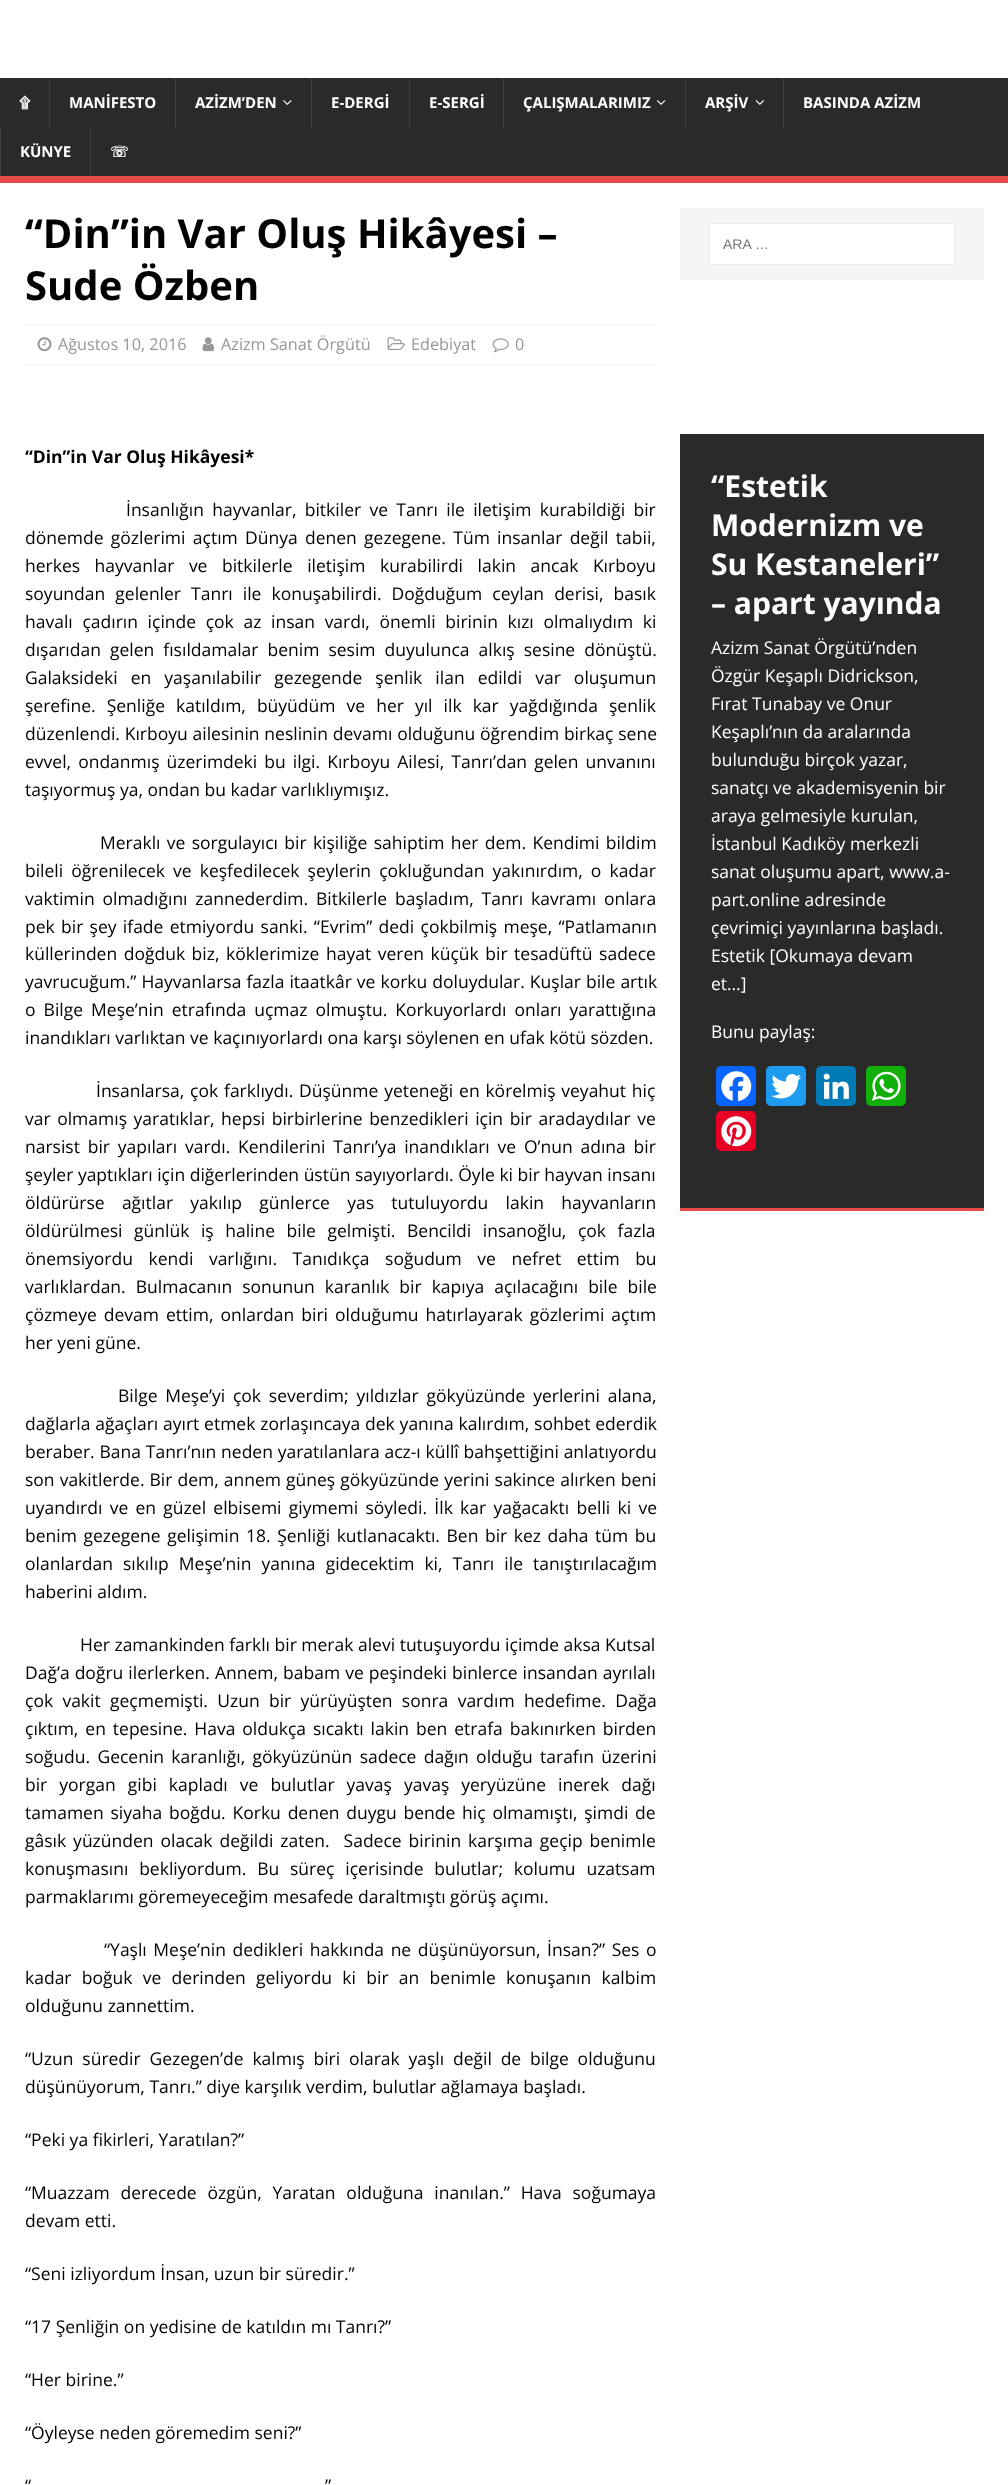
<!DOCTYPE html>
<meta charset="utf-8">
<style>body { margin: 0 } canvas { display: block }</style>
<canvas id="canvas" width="1008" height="2485"></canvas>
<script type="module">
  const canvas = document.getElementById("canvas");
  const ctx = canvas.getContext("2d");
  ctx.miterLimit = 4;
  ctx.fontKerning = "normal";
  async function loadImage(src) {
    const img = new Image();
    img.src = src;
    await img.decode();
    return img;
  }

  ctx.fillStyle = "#ffffff";
  ctx.fillRect(0, 0, 1008, 2485);
  ctx.fillStyle = "#2a2a2a";
  ctx.fillRect(0, 78, 1008, 98);
  ctx.fillStyle = "#e64946";
  ctx.fillRect(0, 176, 1008, 7);
  ctx.font = "bold 15px FreeSerif";
  ctx.fillStyle = "#ffffff";
  ctx.fillText("۩", 19, 108);
  ctx.fillStyle = "#3f3f3f";
  ctx.fillRect(49, 78, 1, 50);
  ctx.font = "bold 15px Open Sans";
  ctx.fillStyle = "#ffffff";
  ctx.fillText("MANİFESTO", 69, 108);
  ctx.fillStyle = "#3f3f3f";
  ctx.fillRect(175, 78, 1, 50);
  ctx.fillStyle = "#ffffff";
  ctx.fillText("AZİZM’DEN", 195, 108);
  ctx.drawImage(await loadImage("img1.png"), 283, 100, 9, 5);
  ctx.fillStyle = "#3f3f3f";
  ctx.fillRect(311, 78, 1, 50);
  ctx.fillStyle = "#ffffff";
  ctx.fillText("E-DERGİ", 331, 108);
  ctx.fillStyle = "#3f3f3f";
  ctx.fillRect(409, 78, 1, 50);
  ctx.fillStyle = "#ffffff";
  ctx.fillText("E-SERGİ", 429, 108);
  ctx.fillStyle = "#3f3f3f";
  ctx.fillRect(503, 78, 1, 50);
  ctx.fillStyle = "#ffffff";
  ctx.fillText("ÇALIŞMALARIMIZ", 523, 108);
  ctx.drawImage(await loadImage("img2.png"), 656, 100, 10, 5);
  ctx.fillStyle = "#3f3f3f";
  ctx.fillRect(685, 78, 1, 50);
  ctx.fillStyle = "#ffffff";
  ctx.fillText("ARŞİV", 705, 108);
  ctx.drawImage(await loadImage("img3.png"), 755, 100, 9, 5);
  ctx.fillStyle = "#3f3f3f";
  ctx.fillRect(783, 78, 1, 50);
  ctx.fillStyle = "#ffffff";
  ctx.fillText("BASINDA AZİZM", 803, 108);
  ctx.fillStyle = "#3f3f3f";
  ctx.fillRect(0, 128, 1, 48);
  ctx.fillStyle = "#ffffff";
  ctx.fillText("KÜNYE", 20, 157);
  ctx.fillStyle = "#3f3f3f";
  ctx.fillRect(90, 128, 1, 48);
  ctx.font = "bold 15px DejaVu Sans";
  ctx.fillStyle = "#ffffff";
  ctx.fillText("☏", 110, 157);
  ctx.font = "bold 40px Open Sans";
  ctx.fillStyle = "#000000";
  ctx.fillText("“Din”in Var Oluş Hikâyesi –", 25, 248);
  ctx.fillText("Sude Özben", 25, 300);
  ctx.beginPath();
  ctx.moveTo(25, 324.5);
  ctx.lineTo(656, 324.5);
  ctx.strokeStyle = "#ebebeb";
  ctx.lineWidth = 1.2;
  ctx.setLineDash([1.25, 1.25]);
  ctx.stroke();
  ctx.beginPath();
  ctx.moveTo(25, 364.5);
  ctx.lineTo(656, 364.5);
  ctx.stroke();
  ctx.drawImage(await loadImage("img4.png"), 37, 337, 15, 15);
  ctx.font = "16.25px Open Sans";
  ctx.fillStyle = "#979797";
  ctx.fillText("Ağustos 10, 2016", 58, 350);
  ctx.drawImage(await loadImage("img5.png"), 202, 337, 13, 15);
  ctx.fillText("Azizm Sanat Örgütü", 221, 350);
  ctx.drawImage(await loadImage("img6.png"), 387, 337, 18, 13);
  ctx.fillText("Edebiyat", 411, 350);
  ctx.drawImage(await loadImage("img7.png"), 492, 338, 17, 15);
  ctx.fillText("0", 515, 350);
  ctx.font = "bold 17.5px Open Sans";
  ctx.fillStyle = "#000000";
  ctx.fillText("“Din”in Var Oluş Hikâyesi*", 25, 463);
  ctx.wordSpacing = "3.75px";
  ctx.font = "17.5px Open Sans";
  ctx.fillText("İnsanlığın hayvanlar, bitkiler ve Tanrı ile iletişim kurabildiği bir", 126, 516);
  ctx.wordSpacing = "2.75px";
  ctx.fillText("dönemde gözlerimi açtım Dünya denen gezegene. Tüm insanlar değil tabii,", 25, 544);
  ctx.wordSpacing = "10px";
  ctx.fillText("herkes hayvanlar ve bitkilerle iletişim kurabilirdi lakin ancak Kırboyu", 25, 572);
  ctx.wordSpacing = "5.5px";
  ctx.fillText("soyundan gelenler Tanrı ile konuşabilirdi. Doğduğum ceylan derisi, basık", 25, 600);
  ctx.wordSpacing = "5.1px";
  ctx.fillText("havalı çadırın içinde çok az insan vardı, önemli birinin kızı olmalıydım ki", 25, 628);
  ctx.wordSpacing = "4.5px";
  ctx.fillText("dışarıdan gelen fısıldamalar benim sesim duyulunca alkış sesine dönüştü.", 25, 656);
  ctx.wordSpacing = "8.5px";
  ctx.fillText("Galaksideki en yaşanılabilir gezegende şenlik ilan edildi var oluşumun", 25, 684);
  ctx.wordSpacing = "6.5px";
  ctx.fillText("şerefine. Şenliğe katıldım, büyüdüm ve her yıl ilk kar yağdığında şenlik", 25, 712);
  ctx.wordSpacing = "0.25px";
  ctx.fillText("düzenlendi. Kırboyu ailesinin neslinin devamı olduğunu öğrendim birkaç sene", 25, 740);
  ctx.wordSpacing = "2.5px";
  ctx.fillText("evvel, ondanmış üzerimdeki bu ilgi. Kırboyu Ailesi, Tanrı’dan gelen unvanını", 25, 768);
  ctx.wordSpacing = "0px";
  ctx.fillText("taşıyormuş ya, ondan bu kadar varlıklıymışız.", 25, 796);
  ctx.wordSpacing = "1.75px";
  ctx.fillText("Meraklı ve sorgulayıcı bir kişiliğe sahiptim her dem. Kendimi bildim", 100, 849);
  ctx.wordSpacing = "3.5px";
  ctx.fillText("bileli öğrenilecek ve keşfedilecek şeylerin çokluğundan yakınırdım, o kadar", 25, 877);
  ctx.wordSpacing = "3.25px";
  ctx.fillText("vaktimin olmadığını zannederdim. Bitkilerle başladım, Tanrı kavramı onlara", 25, 905);
  ctx.wordSpacing = "1.75px";
  ctx.fillText("pek bir şey ifade etmiyordu sanki. “Evrim” dedi çokbilmiş meşe, “Patlamanın", 25, 933);
  ctx.wordSpacing = "2px";
  ctx.fillText("küllerinden doğduk biz, köklerimize hayat veren küçük bir tesadüftü sadece", 25, 960);
  ctx.wordSpacing = "0.5px";
  ctx.fillText("yavrucuğum.” Hayvanlarsa fazla itaatkâr ve korku doluydular. Kuşlar bile artık", 25, 988);
  ctx.wordSpacing = "3.5px";
  ctx.fillText("o Bilge Meşe’nin etrafında uçmaz olmuştu. Korkuyorlardı onları yarattığına", 25, 1016);
  ctx.wordSpacing = "0px";
  ctx.fillText("inandıkları varlıktan ve kaçınıyorlardı ona karşı söylenen en ufak kötü sözden.", 25, 1044);
  ctx.wordSpacing = "1.25px";
  ctx.fillText("İnsanlarsa, çok farklıydı. Düşünme yeteneği en körelmiş veyahut hiç", 96, 1097);
  ctx.wordSpacing = "2px";
  ctx.fillText("var olmamış yaratıklar, hepsi birbirlerine benzedikleri için bir aradaydılar ve", 25, 1125);
  ctx.wordSpacing = "3.25px";
  ctx.fillText("narsist bir yapıları vardı. Kendilerini Tanrı’ya inandıkları ve O’nun adına bir", 25, 1153);
  ctx.wordSpacing = "0px";
  ctx.fillText("şeyler yaptıkları için diğerlerinden üstün sayıyorlardı. Öyle ki bir hayvan insanı", 25, 1181);
  ctx.wordSpacing = "12.75px";
  ctx.fillText("öldürürse ağıtlar yakılıp günlerce yas tutuluyordu lakin hayvanların", 25, 1209);
  ctx.wordSpacing = "7px";
  ctx.fillText("öldürülmesi günlük iş haline bile gelmişti. Bencildi insanoğlu, çok fazla", 25, 1237);
  ctx.wordSpacing = "11px";
  ctx.fillText("önemsiyordu kendi varlığını. Tanıdıkça soğudum ve nefret ettim bu", 25, 1265);
  ctx.wordSpacing = "5.5px";
  ctx.fillText("varlıklardan. Bulmacanın sonunun karanlık bir kapıya açılacağını bile bile", 25, 1293);
  ctx.wordSpacing = "2.5px";
  ctx.fillText("çözmeye devam ettim, onlardan biri olduğumu hatırlayarak gözlerimi açtım", 25, 1321);
  ctx.wordSpacing = "0px";
  ctx.fillText("her yeni güne.", 25, 1349);
  ctx.wordSpacing = "3.25px";
  ctx.fillText("Bilge Meşe’yi çok severdim; yıldızlar gökyüzünde yerlerini alana,", 118, 1402);
  ctx.wordSpacing = "0.25px";
  ctx.fillText("dağlarla ağaçları ayırt etmek zorlaşıncaya dek yanına kalırdım, sohbet ederdik", 25, 1430);
  ctx.fillText("beraber. Bana Tanrı’nın neden yaratılanlara acz-ı küllî bahşettiğini anlatıyordu", 25, 1458);
  ctx.wordSpacing = "0.5px";
  ctx.fillText("son vakitlerde. Bir dem, annem güneş gökyüzünde yerini sakince alırken beni", 25, 1486);
  ctx.wordSpacing = "2.75px";
  ctx.fillText("uyandırdı ve en güzel elbisemi giymemi söyledi. İlk kar yağacaktı belli ki ve", 25, 1514);
  ctx.wordSpacing = "2px";
  ctx.fillText("benim gezegene gelişimin 18. Şenliği kutlanacaktı. Ben bir kez daha tüm bu", 25, 1542);
  ctx.wordSpacing = "5.5px";
  ctx.fillText("olanlardan sıkılıp Meşe’nin yanına gidecektim ki, Tanrı ile tanıştırılacağım", 25, 1570);
  ctx.wordSpacing = "0px";
  ctx.fillText("haberini aldım.", 25, 1598);
  ctx.fillText("Her zamankinden farklı bir merak alevi tutuşuyordu içimde aksa Kutsal", 80, 1651);
  ctx.wordSpacing = "0.5px";
  ctx.fillText("Dağ’a doğru ilerlerken. Annem, babam ve peşindeki binlerce insandan ayrılalı", 25, 1679);
  ctx.wordSpacing = "4.75px";
  ctx.fillText("çok vakit geçmemişti. Uzun bir yürüyüşten sonra vardım hedefime. Dağa", 25, 1707);
  ctx.wordSpacing = "2.4px";
  ctx.fillText("çıktım, en tepesine. Hava oldukça sıcaktı lakin ben etrafa bakınırken birden", 25, 1735);
  ctx.wordSpacing = "2.75px";
  ctx.fillText("soğudu. Gecenin karanlığı, gökyüzünün sadece dağın olduğu tarafın üzerini", 25, 1763);
  ctx.wordSpacing = "7.5px";
  ctx.fillText("bir yorgan gibi kapladı ve bulutlar yavaş yavaş yeryüzüne inerek dağı", 25, 1791);
  ctx.wordSpacing = "2.25px";
  ctx.fillText("tamamen siyaha boğdu. Korku denen duygu bende hiç olmamıştı, şimdi de", 25, 1819);
  ctx.wordSpacing = "2.4px";
  ctx.fillText("gâsık yüzünden olacak değildi zaten.  Sadece birinin karşıma geçip benimle", 25, 1847);
  ctx.wordSpacing = "6.25px";
  ctx.fillText("konuşmasını bekliyordum. Bu süreç içerisinde bulutlar; kolumu uzatsam", 25, 1875);
  ctx.wordSpacing = "0px";
  ctx.fillText("parmaklarımı göremeyeceğim mesafede daraltmıştı görüş açımı.", 25, 1903);
  ctx.wordSpacing = "2px";
  ctx.fillText("“Yaşlı Meşe’nin dedikleri hakkında ne düşünüyorsun, İnsan?” Ses o", 104, 1956);
  ctx.wordSpacing = "5.75px";
  ctx.fillText("kadar boğuk ve derinden geliyordu ki bir an benimle konuşanın kalbim", 25, 1984);
  ctx.wordSpacing = "0px";
  ctx.fillText("olduğunu zannettim.", 25, 2012);
  ctx.wordSpacing = "4.25px";
  ctx.fillText("“Uzun süredir Gezegen’de kalmış biri olarak yaşlı değil de bilge olduğunu", 25, 2065);
  ctx.wordSpacing = "0px";
  ctx.fillText("düşünüyorum, Tanrı.” diye karşılık verdim, bulutlar ağlamaya başladı.", 25, 2093);
  ctx.fillText("“Peki ya fikirleri, Yaratılan?”", 25, 2146);
  ctx.wordSpacing = "6.25px";
  ctx.fillText("“Muazzam derecede özgün, Yaratan olduğuna inanılan.” Hava soğumaya", 25, 2199);
  ctx.wordSpacing = "0px";
  ctx.fillText("devam etti.", 25, 2227);
  ctx.fillText("“Seni izliyordum İnsan, uzun bir süredir.”", 25, 2280);
  ctx.fillText("“17 Şenliğin on yedisine de katıldın mı Tanrı?”", 25, 2333);
  ctx.fillText("“Her birine.”", 25, 2386);
  ctx.fillText("“Öyleyse neden göremedim seni?”", 25, 2439);
  ctx.fillText("“", 25, 2492);
  ctx.fillText("”", 325, 2492);
  ctx.fillStyle = "#f5f5f5";
  ctx.fillRect(680, 208, 304, 72);
  ctx.fillStyle = "#ffffff";
  ctx.beginPath();
  ctx.rect(709.5, 223.5, 245, 41);
  ctx.fill();
  ctx.lineWidth = 1;
  ctx.setLineDash([]);
  ctx.stroke();
  ctx.font = "14px Liberation Sans";
  ctx.fillStyle = "#757575";
  ctx.fillText("ARA …", 723, 249);
  ctx.fillStyle = "#2a2a2a";
  ctx.fillRect(680, 434, 304, 774);
  ctx.fillStyle = "#e64946";
  ctx.fillRect(680, 1208, 304, 3);
  ctx.font = "bold 30px Open Sans";
  ctx.fillStyle = "#ffffff";
  ctx.fillText("“Estetik", 711, 497);
  ctx.fillText("Modernizm ve", 711, 536);
  ctx.fillText("Su Kestaneleri”", 711, 575);
  ctx.fillText("– apart yayında", 711, 614);
  ctx.font = "17.5px Open Sans";
  ctx.fillText("Azizm Sanat Örgütü’nden", 711, 654);
  ctx.fillText("Özgür Keşaplı Didrickson,", 711, 682);
  ctx.fillText("Fırat Tunabay ve Onur", 711, 710);
  ctx.fillText("Keşaplı’nın da aralarında", 711, 738);
  ctx.fillText("bulunduğu birçok yazar,", 711, 766);
  ctx.fillText("sanatçı ve akademisyenin bir", 711, 794);
  ctx.fillText("araya gelmesiyle kurulan,", 711, 822);
  ctx.fillText("İstanbul Kadıköy merkezli", 711, 850);
  ctx.fillText("sanat oluşumu apart, www.a-", 711, 878);
  ctx.fillText("part.online adresinde", 711, 906);
  ctx.fillText("çevrimiçi yayınlarına başladı.", 711, 934);
  ctx.fillText("Estetik [Okumaya devam", 711, 962);
  ctx.fillText("et…]", 711, 990);
  ctx.fillText("Bunu paylaş:", 711, 1038);
  ctx.fillStyle = "#0866ff";
  ctx.beginPath();
  ctx.roundRect(716, 1066, 40, 40, 5);
  ctx.fill();
  ctx.drawImage(await loadImage("img8.png"), 721, 1071, 31, 31);
  ctx.fillStyle = "#1d9bf0";
  ctx.beginPath();
  ctx.roundRect(766, 1066, 40, 40, 5);
  ctx.fill();
  ctx.drawImage(await loadImage("img9.png"), 771, 1074, 31, 25);
  ctx.fillStyle = "#007bb5";
  ctx.beginPath();
  ctx.roundRect(816, 1066, 40, 40, 5);
  ctx.fill();
  ctx.drawImage(await loadImage("img10.png"), 823, 1073, 26, 26);
  ctx.fillStyle = "#12af0a";
  ctx.beginPath();
  ctx.roundRect(866, 1066, 40, 40, 5);
  ctx.fill();
  ctx.drawImage(await loadImage("img11.png"), 871, 1071, 30, 30);
  ctx.fillStyle = "#e60023";
  ctx.beginPath();
  ctx.roundRect(716, 1111, 40, 40, 5);
  ctx.fill();
  ctx.drawImage(await loadImage("img12.png"), 721, 1116, 31, 31);
</script>
